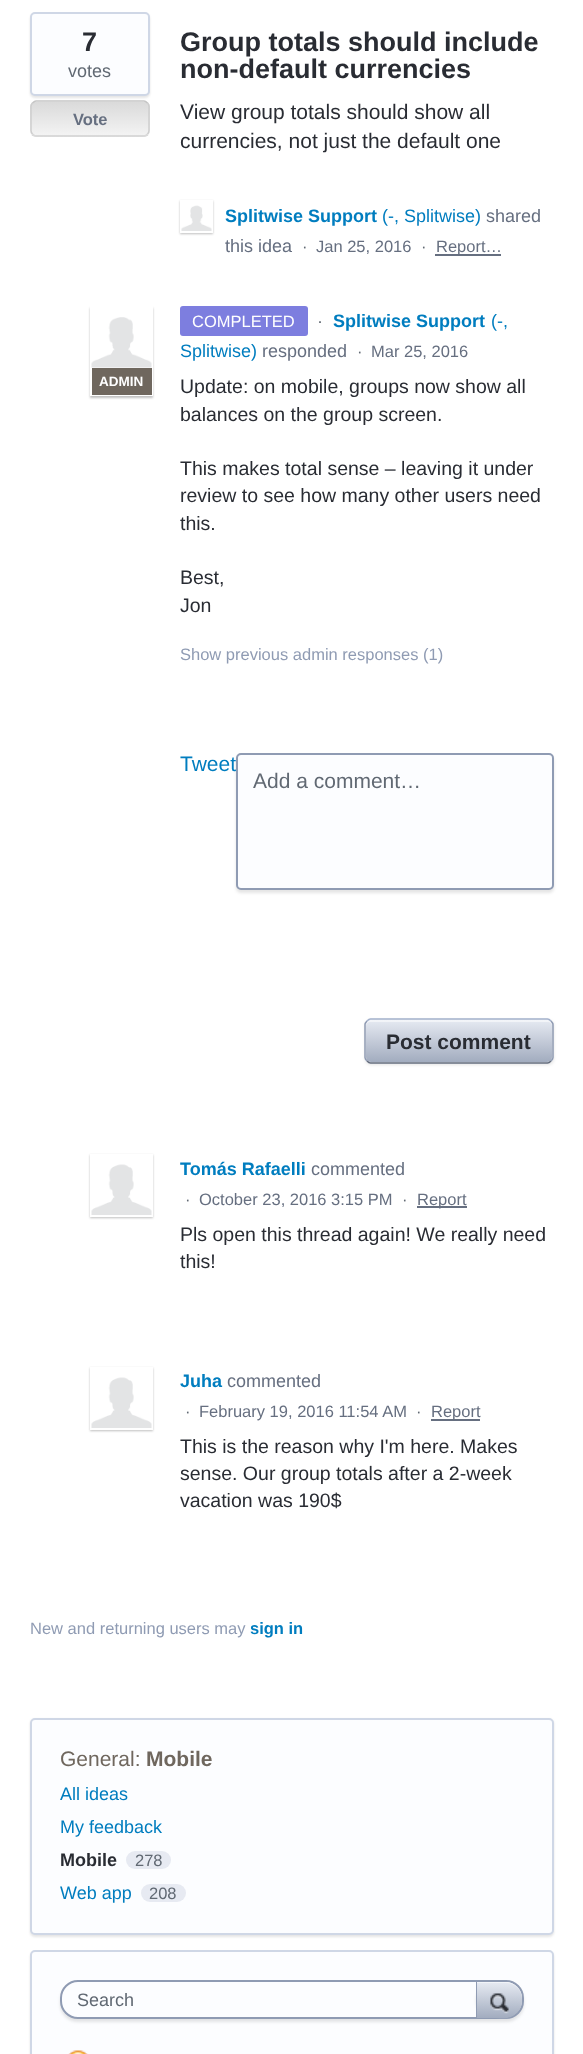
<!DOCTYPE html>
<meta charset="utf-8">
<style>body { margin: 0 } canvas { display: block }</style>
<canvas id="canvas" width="583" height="2054"></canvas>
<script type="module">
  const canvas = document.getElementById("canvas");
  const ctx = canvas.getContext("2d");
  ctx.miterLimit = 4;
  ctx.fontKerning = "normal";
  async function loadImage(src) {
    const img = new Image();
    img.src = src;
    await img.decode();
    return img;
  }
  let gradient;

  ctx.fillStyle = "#ffffff";
  ctx.fillRect(0, 0, 583, 2054);
  ctx.fillStyle = "rgba(0, 0, 0, 0.1)";
  ctx.filter = "blur(1px)";
  ctx.beginPath();
  ctx.roundRect(30, 14, 120, 84, 5);
  ctx.fill();
  ctx.filter = "none";
  ctx.fillStyle = "#fcfdff";
  ctx.beginPath();
  ctx.roundRect(31, 13, 118, 82, 4);
  ctx.fill();
  ctx.strokeStyle = "#cfd7e6";
  ctx.lineWidth = 2;
  ctx.stroke();
  ctx.font = "bold 27px Liberation Sans";
  ctx.fillStyle = "#292c33";
  ctx.fillText("7", 82, 51);
  ctx.font = "18px Liberation Sans";
  ctx.fillStyle = "#616973";
  ctx.fillText("votes", 68, 77);
  ctx.save();
  ctx.beginPath();
  ctx.roundRect(30, 101, 120, 36, 6);
  ctx.clip();
  gradient = ctx.createLinearGradient(32, 102, 32, 135);
  gradient.addColorStop(0, "#dadada");
  gradient.addColorStop(1, "#f3f3f3");
  ctx.fillStyle = gradient;
  ctx.fillRect(30, 102, 120, 33);
  gradient = ctx.createLinearGradient(32, 135, 32, 168);
  gradient.addColorStop(0, "#dadada");
  gradient.addColorStop(1, "#f3f3f3");
  ctx.fillStyle = gradient;
  ctx.fillRect(30, 135, 120, 2);
  ctx.restore();
  ctx.beginPath();
  ctx.moveTo(32.5, 103);
  ctx.bezierCurveTo(33.5, 102, 34.5, 101, 36, 101);
  ctx.lineTo(144, 101);
  ctx.bezierCurveTo(145.5, 101, 146.5, 102, 147.5, 103);
  ctx.strokeStyle = "#c5c5c5";
  ctx.lineWidth = 1.5;
  ctx.stroke();
  ctx.beginPath();
  ctx.moveTo(147.5, 103);
  ctx.bezierCurveTo(148.5, 104, 149, 105, 149, 106.5);
  ctx.lineTo(149, 130.5);
  ctx.bezierCurveTo(149, 132, 148.5, 133, 147.5, 134);
  ctx.strokeStyle = "#cecece";
  ctx.stroke();
  ctx.beginPath();
  ctx.moveTo(147.5, 134);
  ctx.bezierCurveTo(146.5, 135, 145.5, 136, 144, 136);
  ctx.lineTo(36, 136);
  ctx.bezierCurveTo(34.5, 136, 33.5, 135, 32.5, 134);
  ctx.strokeStyle = "#d9d9d9";
  ctx.stroke();
  ctx.beginPath();
  ctx.moveTo(32.5, 134);
  ctx.bezierCurveTo(31.5, 133, 31, 132, 31, 130.5);
  ctx.lineTo(31, 106.5);
  ctx.bezierCurveTo(31, 105, 31.5, 104, 32.5, 103);
  ctx.strokeStyle = "#cecece";
  ctx.stroke();
  ctx.font = "bold 16.5px Liberation Sans";
  ctx.fillStyle = "#666f80";
  ctx.fillText("Vote", 73, 125);
  ctx.font = "bold 27px Liberation Sans";
  ctx.fillStyle = "#292c33";
  ctx.fillText("Group totals should include", 180, 51);
  ctx.fillText("non-default currencies", 180, 78);
  ctx.font = "21px Liberation Sans";
  ctx.fillText("View group totals should show all", 180, 119);
  ctx.fillText("currencies, not just the default one", 180, 148);
  ctx.save();
  ctx.beginPath();
  ctx.moveTo(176, 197);
  ctx.lineTo(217, 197);
  ctx.lineTo(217, 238);
  ctx.lineTo(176, 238);
  ctx.closePath();
  ctx.moveTo(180, 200);
  ctx.lineTo(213, 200);
  ctx.lineTo(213, 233);
  ctx.lineTo(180, 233);
  ctx.closePath();
  ctx.clip("evenodd");
  ctx.fillStyle = "rgba(0, 0, 0, 0.25)";
  ctx.filter = "blur(1px)";
  ctx.beginPath();
  ctx.rect(180, 201, 33, 33);
  ctx.fill();
  ctx.filter = "none";
  ctx.restore();
  ctx.strokeStyle = "#ffffff";
  ctx.lineWidth = 2;
  ctx.strokeRect(181, 201, 31, 31);
  ctx.drawImage(await loadImage("img1.png"), 181, 205, 31, 26);
  ctx.font = "bold 18px Liberation Sans";
  ctx.fillStyle = "#007dbf";
  ctx.fillText("Splitwise Support", 225, 222);
  ctx.font = "18px Liberation Sans";
  ctx.fillText("(-, Splitwise)", 382, 222);
  ctx.fillStyle = "#666f80";
  ctx.fillText("shared", 486, 222);
  ctx.fillText("this idea", 225, 252);
  ctx.font = "16.5px Liberation Sans";
  ctx.fillStyle = "#616973";
  ctx.fillText("·", 302, 252);
  ctx.fillStyle = "#666f80";
  ctx.fillText("Jan 25, 2016", 316, 252);
  ctx.fillStyle = "#616973";
  ctx.fillText("·", 421, 252);
  ctx.fillStyle = "#666f80";
  ctx.fillRect(435, 254, 66, 2);
  ctx.fillText("Report…", 436, 252);
  ctx.font = "bold 18px Liberation Sans";
  ctx.fillStyle = "#007dbf";
  ctx.fillText("Splitwise Support", 333, 327);
  ctx.font = "18px Liberation Sans";
  ctx.fillText("(-,", 491, 327);
  ctx.fillText("Splitwise)", 180, 357);
  ctx.save();
  ctx.beginPath();
  ctx.moveTo(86, 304);
  ctx.lineTo(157, 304);
  ctx.lineTo(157, 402);
  ctx.lineTo(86, 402);
  ctx.closePath();
  ctx.moveTo(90, 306);
  ctx.lineTo(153, 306);
  ctx.lineTo(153, 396);
  ctx.lineTo(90, 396);
  ctx.closePath();
  ctx.clip("evenodd");
  ctx.fillStyle = "rgba(0, 0, 0, 0.25)";
  ctx.filter = "blur(1px)";
  ctx.beginPath();
  ctx.rect(90, 308, 63, 90);
  ctx.fill();
  ctx.filter = "none";
  ctx.restore();
  ctx.drawImage(await loadImage("img2.png"), 91, 317, 61, 51);
  ctx.fillStyle = "#6f675e";
  ctx.fillRect(92, 368, 60, 27);
  ctx.font = "bold 13.5px Liberation Sans";
  ctx.fillStyle = "#ffffff";
  ctx.fillText("ADMIN", 99, 386);
  ctx.fillStyle = "#7d7edf";
  ctx.beginPath();
  ctx.roundRect(180, 306, 128, 30, 3);
  ctx.fill();
  ctx.font = "16.5px Liberation Sans";
  ctx.fillStyle = "#ffffff";
  ctx.fillText("COMPLETED", 192, 327);
  ctx.font = "18px Liberation Sans";
  ctx.fillStyle = "#616973";
  ctx.fillText("·", 317, 327);
  ctx.fillStyle = "#666f80";
  ctx.fillText("responded", 262, 357);
  ctx.font = "16.5px Liberation Sans";
  ctx.fillStyle = "#616973";
  ctx.fillText("·", 357, 357);
  ctx.fillStyle = "#666f80";
  ctx.fillText("Mar 25, 2016", 371, 357);
  ctx.font = "19.5px Liberation Sans";
  ctx.fillStyle = "#292c33";
  ctx.fillText("Update: on mobile, groups now show all", 180, 393);
  ctx.fillText("balances on the group screen.", 180, 421);
  ctx.fillText("This makes total sense – leaving it under", 180, 475);
  ctx.fillText("review to see how many other users need", 180, 502);
  ctx.fillText("this.", 180, 530);
  ctx.fillText("Best,", 180, 584);
  ctx.fillText("Jon", 180, 612);
  ctx.font = "16.5px Liberation Sans";
  ctx.fillStyle = "#8f9bb3";
  ctx.fillText("Show previous admin responses (1)", 180, 660);
  ctx.fillStyle = "rgba(0, 0, 0, 0.1)";
  ctx.filter = "blur(1.5px)";
  ctx.beginPath();
  ctx.roundRect(236, 756, 318, 137, 5);
  ctx.fill();
  ctx.filter = "none";
  ctx.font = "21px Liberation Sans";
  ctx.fillStyle = "#007dbf";
  ctx.fillText("Tweet", 180, 771);
  ctx.fillStyle = "#fcfdff";
  ctx.beginPath();
  ctx.roundRect(237, 754, 316, 135, 4);
  ctx.fill();
  ctx.strokeStyle = "#8f9bb3";
  ctx.stroke();
  ctx.fillStyle = "#616973";
  ctx.fillText("Add a comment…", 253, 788);
  ctx.fillStyle = "rgba(0, 0, 0, 0.1)";
  ctx.filter = "blur(1.5px)";
  ctx.beginPath();
  ctx.roundRect(365, 1020, 189, 45, 6);
  ctx.fill();
  ctx.filter = "none";
  gradient = ctx.createLinearGradient(366, 1020, 366, 1062);
  gradient.addColorStop(0, "#e6eaf2");
  gradient.addColorStop(1, "#a2acbf");
  ctx.fillStyle = gradient;
  ctx.beginPath();
  ctx.roundRect(366, 1020, 186, 42, 5);
  ctx.fill();
  ctx.fillStyle = "rgba(255, 255, 255, 0.5)";
  ctx.beginPath();
  ctx.moveTo(370, 1022);
  ctx.lineTo(548, 1022);
  ctx.bezierCurveTo(550, 1022, 552, 1024, 552, 1026);
  ctx.bezierCurveTo(552, 1023, 551, 1021, 548, 1020);
  ctx.lineTo(370, 1020);
  ctx.bezierCurveTo(367, 1021, 366, 1023, 366, 1026);
  ctx.bezierCurveTo(366, 1024, 368, 1022, 370, 1022);
  ctx.closePath();
  ctx.fill();
  ctx.beginPath();
  ctx.moveTo(367, 1021);
  ctx.bezierCurveTo(368, 1020, 369, 1019, 370.5, 1019);
  ctx.lineTo(547.5, 1019);
  ctx.bezierCurveTo(549, 1019, 550, 1020, 551, 1021);
  ctx.strokeStyle = "#a3b1cc";
  ctx.lineWidth = 1.5;
  ctx.stroke();
  ctx.beginPath();
  ctx.moveTo(551, 1021);
  ctx.bezierCurveTo(552, 1022, 553, 1023, 553, 1024.5);
  ctx.lineTo(553, 1057.5);
  ctx.bezierCurveTo(553, 1059, 552, 1060, 551, 1061);
  ctx.strokeStyle = "#8f9bb3";
  ctx.stroke();
  ctx.beginPath();
  ctx.moveTo(551, 1061);
  ctx.bezierCurveTo(550, 1062, 549, 1063, 547.5, 1063);
  ctx.lineTo(370.5, 1063);
  ctx.bezierCurveTo(369, 1063, 368, 1062, 367, 1061);
  ctx.strokeStyle = "#666f80";
  ctx.stroke();
  ctx.beginPath();
  ctx.moveTo(367, 1061);
  ctx.bezierCurveTo(366, 1060, 365, 1059, 365, 1057.5);
  ctx.lineTo(365, 1024.5);
  ctx.bezierCurveTo(365, 1023, 366, 1022, 367, 1021);
  ctx.strokeStyle = "#8f9bb3";
  ctx.stroke();
  ctx.font = "bold 21px Liberation Sans";
  ctx.fillStyle = "#292c33";
  ctx.fillText("Post comment", 386, 1049);
  ctx.save();
  ctx.beginPath();
  ctx.moveTo(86, 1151);
  ctx.lineTo(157, 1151);
  ctx.lineTo(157, 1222);
  ctx.lineTo(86, 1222);
  ctx.closePath();
  ctx.moveTo(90, 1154);
  ctx.lineTo(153, 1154);
  ctx.lineTo(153, 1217);
  ctx.lineTo(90, 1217);
  ctx.closePath();
  ctx.clip("evenodd");
  ctx.fillStyle = "rgba(0, 0, 0, 0.25)";
  ctx.filter = "blur(1px)";
  ctx.beginPath();
  ctx.rect(90, 1155, 63, 63);
  ctx.fill();
  ctx.filter = "none";
  ctx.restore();
  ctx.strokeStyle = "#ffffff";
  ctx.lineWidth = 2;
  ctx.strokeRect(91, 1155, 61, 61);
  ctx.drawImage(await loadImage("img3.png"), 91, 1164, 61, 51);
  ctx.font = "bold 18px Liberation Sans";
  ctx.fillStyle = "#007dbf";
  ctx.fillText("Tomás Rafaelli", 180, 1175);
  ctx.font = "18px Liberation Sans";
  ctx.fillStyle = "#666f80";
  ctx.fillText("commented", 311, 1175);
  ctx.font = "16.5px Liberation Sans";
  ctx.fillStyle = "#616973";
  ctx.fillText("·", 185, 1205);
  ctx.fillStyle = "#666f80";
  ctx.fillText("October 23, 2016 3:15 PM", 199, 1205);
  ctx.fillStyle = "#616973";
  ctx.fillText("·", 402, 1205);
  ctx.fillStyle = "#666f80";
  ctx.fillRect(417, 1206, 50, 2);
  ctx.fillText("Report", 417, 1205);
  ctx.font = "19.5px Liberation Sans";
  ctx.fillStyle = "#292c33";
  ctx.fillText("Pls open this thread again! We really need", 180, 1241);
  ctx.fillText("this!", 180, 1268);
  ctx.save();
  ctx.beginPath();
  ctx.moveTo(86, 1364);
  ctx.lineTo(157, 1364);
  ctx.lineTo(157, 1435);
  ctx.lineTo(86, 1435);
  ctx.closePath();
  ctx.moveTo(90, 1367);
  ctx.lineTo(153, 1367);
  ctx.lineTo(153, 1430);
  ctx.lineTo(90, 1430);
  ctx.closePath();
  ctx.clip("evenodd");
  ctx.fillStyle = "rgba(0, 0, 0, 0.25)";
  ctx.filter = "blur(1px)";
  ctx.beginPath();
  ctx.rect(90, 1368, 63, 63);
  ctx.fill();
  ctx.filter = "none";
  ctx.restore();
  ctx.strokeRect(91, 1368, 61, 61);
  ctx.drawImage(await loadImage("img4.png"), 91, 1377, 61, 51);
  ctx.font = "bold 18px Liberation Sans";
  ctx.fillStyle = "#007dbf";
  ctx.fillText("Juha", 180, 1387);
  ctx.font = "18px Liberation Sans";
  ctx.fillStyle = "#666f80";
  ctx.fillText("commented", 227, 1387);
  ctx.font = "16.5px Liberation Sans";
  ctx.fillStyle = "#616973";
  ctx.fillText("·", 185, 1417);
  ctx.fillStyle = "#666f80";
  ctx.fillText("February 19, 2016 11:54 AM", 199, 1417);
  ctx.fillStyle = "#616973";
  ctx.fillText("·", 416, 1417);
  ctx.fillStyle = "#666f80";
  ctx.fillRect(431, 1419, 49, 2);
  ctx.fillText("Report", 431, 1417);
  ctx.font = "19.5px Liberation Sans";
  ctx.fillStyle = "#292c33";
  ctx.fillText("This is the reason why I'm here. Makes", 180, 1453);
  ctx.fillText("sense. Our group totals after a 2-week", 180, 1480);
  ctx.fillText("vacation was 190$", 180, 1507);
  ctx.font = "16.5px Liberation Sans";
  ctx.fillStyle = "#8f9bb3";
  ctx.fillText("New and returning users may", 30, 1634);
  ctx.font = "bold 16.5px Liberation Sans";
  ctx.fillStyle = "#007dbf";
  ctx.fillText("sign in", 250, 1634);
  ctx.fillStyle = "rgba(0, 0, 0, 0.1)";
  ctx.filter = "blur(1px)";
  ctx.beginPath();
  ctx.roundRect(30, 1719, 524, 218, 5);
  ctx.fill();
  ctx.filter = "none";
  ctx.fillStyle = "#fcfdff";
  ctx.beginPath();
  ctx.roundRect(31, 1719, 522, 215, 4);
  ctx.fill();
  ctx.strokeStyle = "#cfd7e6";
  ctx.stroke();
  ctx.font = "21px Liberation Sans";
  ctx.fillStyle = "#6f675e";
  ctx.fillText("General:", 60, 1766);
  ctx.font = "bold 21px Liberation Sans";
  ctx.fillText("Mobile", 146, 1766);
  ctx.font = "18px Liberation Sans";
  ctx.fillStyle = "#007dbf";
  ctx.fillText("All ideas", 60, 1800);
  ctx.fillText("My feedback", 60, 1833);
  ctx.font = "bold 18px Liberation Sans";
  ctx.fillStyle = "#292c33";
  ctx.fillText("Mobile", 60, 1866);
  ctx.fillStyle = "#e7eaf2";
  ctx.beginPath();
  ctx.roundRect(126, 1851, 45, 18, 9);
  ctx.fill();
  ctx.font = "16.5px Liberation Sans";
  ctx.fillStyle = "#616973";
  ctx.fillText("278", 135, 1866);
  ctx.font = "18px Liberation Sans";
  ctx.fillStyle = "#007dbf";
  ctx.fillText("Web app", 60, 1899);
  ctx.fillStyle = "#e7eaf2";
  ctx.beginPath();
  ctx.roundRect(141, 1884, 45, 18, 9);
  ctx.fill();
  ctx.font = "16.5px Liberation Sans";
  ctx.fillStyle = "#616973";
  ctx.fillText("208", 149, 1899);
  ctx.fillStyle = "rgba(0, 0, 0, 0.1)";
  ctx.filter = "blur(1px)";
  ctx.beginPath();
  ctx.roundRect(30, 1952, 524, 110, 5);
  ctx.fill();
  ctx.filter = "none";
  ctx.fillStyle = "#fcfdff";
  ctx.beginPath();
  ctx.roundRect(31, 1951, 522, 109, 4);
  ctx.fill();
  ctx.stroke();
  ctx.fillStyle = "rgba(0, 0, 0, 0.1)";
  ctx.filter = "blur(1.5px)";
  ctx.beginPath();
  ctx.roundRect(60, 1983, 464, 39, 18);
  ctx.fill();
  ctx.filter = "none";
  ctx.fillStyle = "#fcfdff";
  ctx.beginPath();
  ctx.roundRect(61, 1981, 462, 37, 17);
  ctx.fill();
  ctx.strokeStyle = "#8f9bb3";
  ctx.stroke();
  ctx.font = "18px Liberation Sans";
  ctx.fillStyle = "#616973";
  ctx.fillText("Search", 77, 2006);
  ctx.save();
  ctx.beginPath();
  ctx.roundRect(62, 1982, 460, 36, 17);
  ctx.clip();
  ctx.fillStyle = "rgba(0, 0, 0, 0.1)";
  ctx.filter = "blur(1.5px)";
  ctx.beginPath();
  ctx.roundRect(476, 1982, 48, 37, 18);
  ctx.fill();
  ctx.filter = "none";
  ctx.restore();
  gradient = ctx.createLinearGradient(477, 1982, 477, 2018);
  gradient.addColorStop(0, "#e6eaf2");
  gradient.addColorStop(1, "#a2acbf");
  ctx.fillStyle = gradient;
  ctx.beginPath();
  ctx.moveTo(477, 1982);
  ctx.lineTo(477, 2018);
  ctx.lineTo(496, 2018);
  ctx.bezierCurveTo(501, 2018, 506, 2019, 511, 2017);
  ctx.bezierCurveTo(528, 2010, 525, 1982, 505, 1982);
  ctx.closePath();
  ctx.fill();
  ctx.fillStyle = "rgba(255, 255, 255, 0.5)";
  ctx.beginPath();
  ctx.moveTo(477, 1983);
  ctx.lineTo(506, 1983);
  ctx.bezierCurveTo(515, 1983, 522, 1990, 522, 2000);
  ctx.bezierCurveTo(522, 1992, 517, 1984, 508, 1982);
  ctx.lineTo(477, 1982);
  ctx.closePath();
  ctx.fill();
  ctx.fillStyle = "#8f9bb3";
  ctx.beginPath();
  ctx.moveTo(514, 2015.5);
  ctx.bezierCurveTo(519.5, 2012, 522, 2006, 522, 2000);
  ctx.bezierCurveTo(522, 2006, 519, 2012, 514, 2015.5);
  ctx.closePath();
  ctx.fill();
  ctx.fillRect(476, 1982, 1, 36);
  ctx.drawImage(await loadImage("img5.png"), 490, 1993, 19, 21);
  ctx.drawImage(await loadImage("img6.png"), 68, 2050, 20, 4);
</script>
